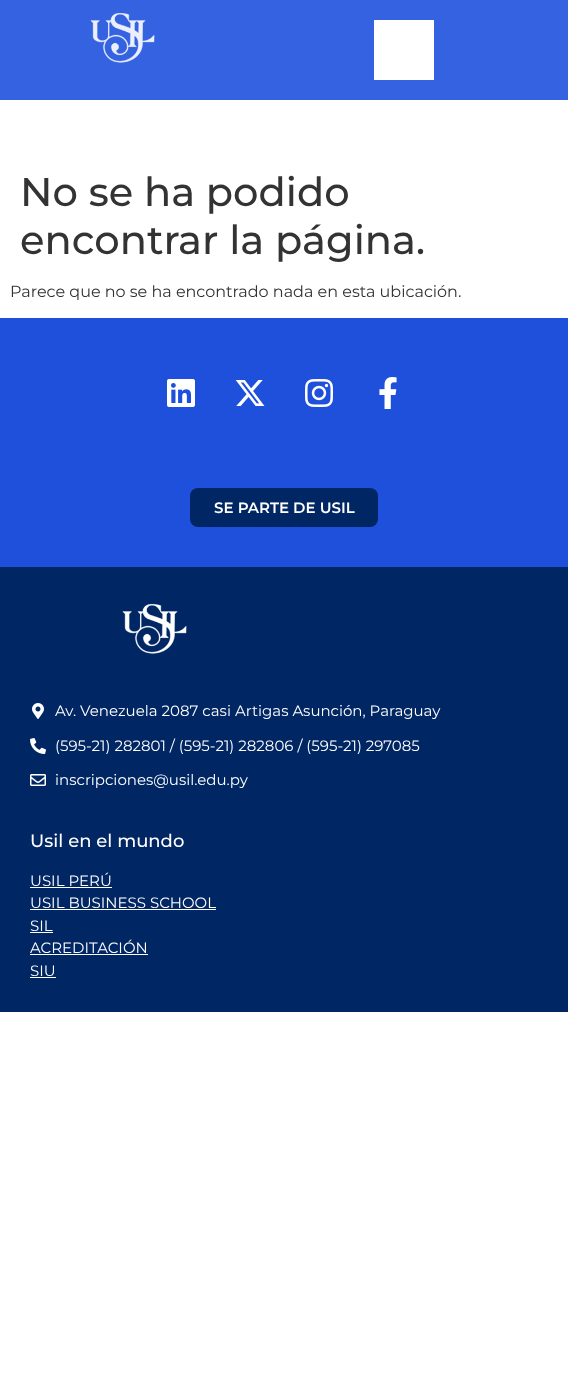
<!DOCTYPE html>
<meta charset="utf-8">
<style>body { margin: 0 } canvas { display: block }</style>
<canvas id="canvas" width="568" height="1382"></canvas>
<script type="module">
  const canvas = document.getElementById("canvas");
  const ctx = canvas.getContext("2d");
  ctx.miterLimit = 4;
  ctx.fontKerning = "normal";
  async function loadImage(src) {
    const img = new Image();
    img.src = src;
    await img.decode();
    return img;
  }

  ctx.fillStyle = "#ffffff";
  ctx.fillRect(0, 0, 568, 1382);
  ctx.fillStyle = "#3562e0";
  ctx.fillRect(0, 0, 568, 100);
  ctx.drawImage(await loadImage("img1.png"), 90, 13, 65, 50);
  ctx.fillStyle = "#ffffff";
  ctx.fillRect(374, 20, 60, 60);
  ctx.font = "500 40px Montserrat";
  ctx.fillStyle = "#333333";
  ctx.fillText("No se ha podido", 20, 206);
  ctx.fillText("encontrar la página.", 20, 254);
  ctx.font = "16px Montserrat";
  ctx.fillText("Parece que no se ha encontrado nada en esta ubicación.", 10, 297);
  ctx.fillStyle = "#1e50dc";
  ctx.fillRect(0, 318, 568, 249);
  ctx.drawImage(await loadImage("img2.png"), 167, 379, 28, 28);
  ctx.drawImage(await loadImage("img3.png"), 235, 380, 30, 26);
  ctx.drawImage(await loadImage("img4.png"), 305, 379, 28, 28);
  ctx.drawImage(await loadImage("img5.png"), 379, 377, 18, 32);
  ctx.fillStyle = "#002663";
  ctx.beginPath();
  ctx.roundRect(190, 488, 188, 39, 8);
  ctx.fill();
  ctx.font = "600 15px Montserrat";
  ctx.fillStyle = "#ffffff";
  ctx.fillText("SE PARTE DE USIL", 214, 513);
  ctx.fillStyle = "#002663";
  ctx.fillRect(0, 567, 568, 445);
  ctx.drawImage(await loadImage("img6.png"), 122, 604, 65, 50);
  ctx.drawImage(await loadImage("img7.png"), 32, 703, 12, 16);
  ctx.font = "15px Montserrat";
  ctx.fillStyle = "#ffffff";
  ctx.fillText("Av. Venezuela 2087 casi Artigas Asunción, Paraguay", 55, 716);
  ctx.drawImage(await loadImage("img8.png"), 30, 738, 16, 16);
  ctx.fillText("(595-21) 282801 / (595-21) 282806 / (595-21) 297085", 55, 751);
  ctx.drawImage(await loadImage("img9.png"), 30, 774, 16, 12);
  ctx.fillText("inscripciones@usil.edu.py", 55, 785);
  ctx.font = "500 18px Montserrat";
  ctx.fillText("Usil en el mundo", 30, 847);
  ctx.font = "15px Montserrat";
  ctx.fillText("USIL PERÚ", 30, 886);
  ctx.fillRect(30, 887, 82, 1);
  ctx.fillText("USIL BUSINESS SCHOOL", 30, 908);
  ctx.fillRect(30, 909, 186, 1);
  ctx.fillText("SIL", 30, 931);
  ctx.fillRect(30, 932, 23, 1);
  ctx.fillText("ACREDITACIÓN", 30, 953);
  ctx.fillRect(30, 954, 118, 1);
  ctx.fillText("SIU", 30, 976);
  ctx.fillRect(30, 977, 26, 1);
</script>
